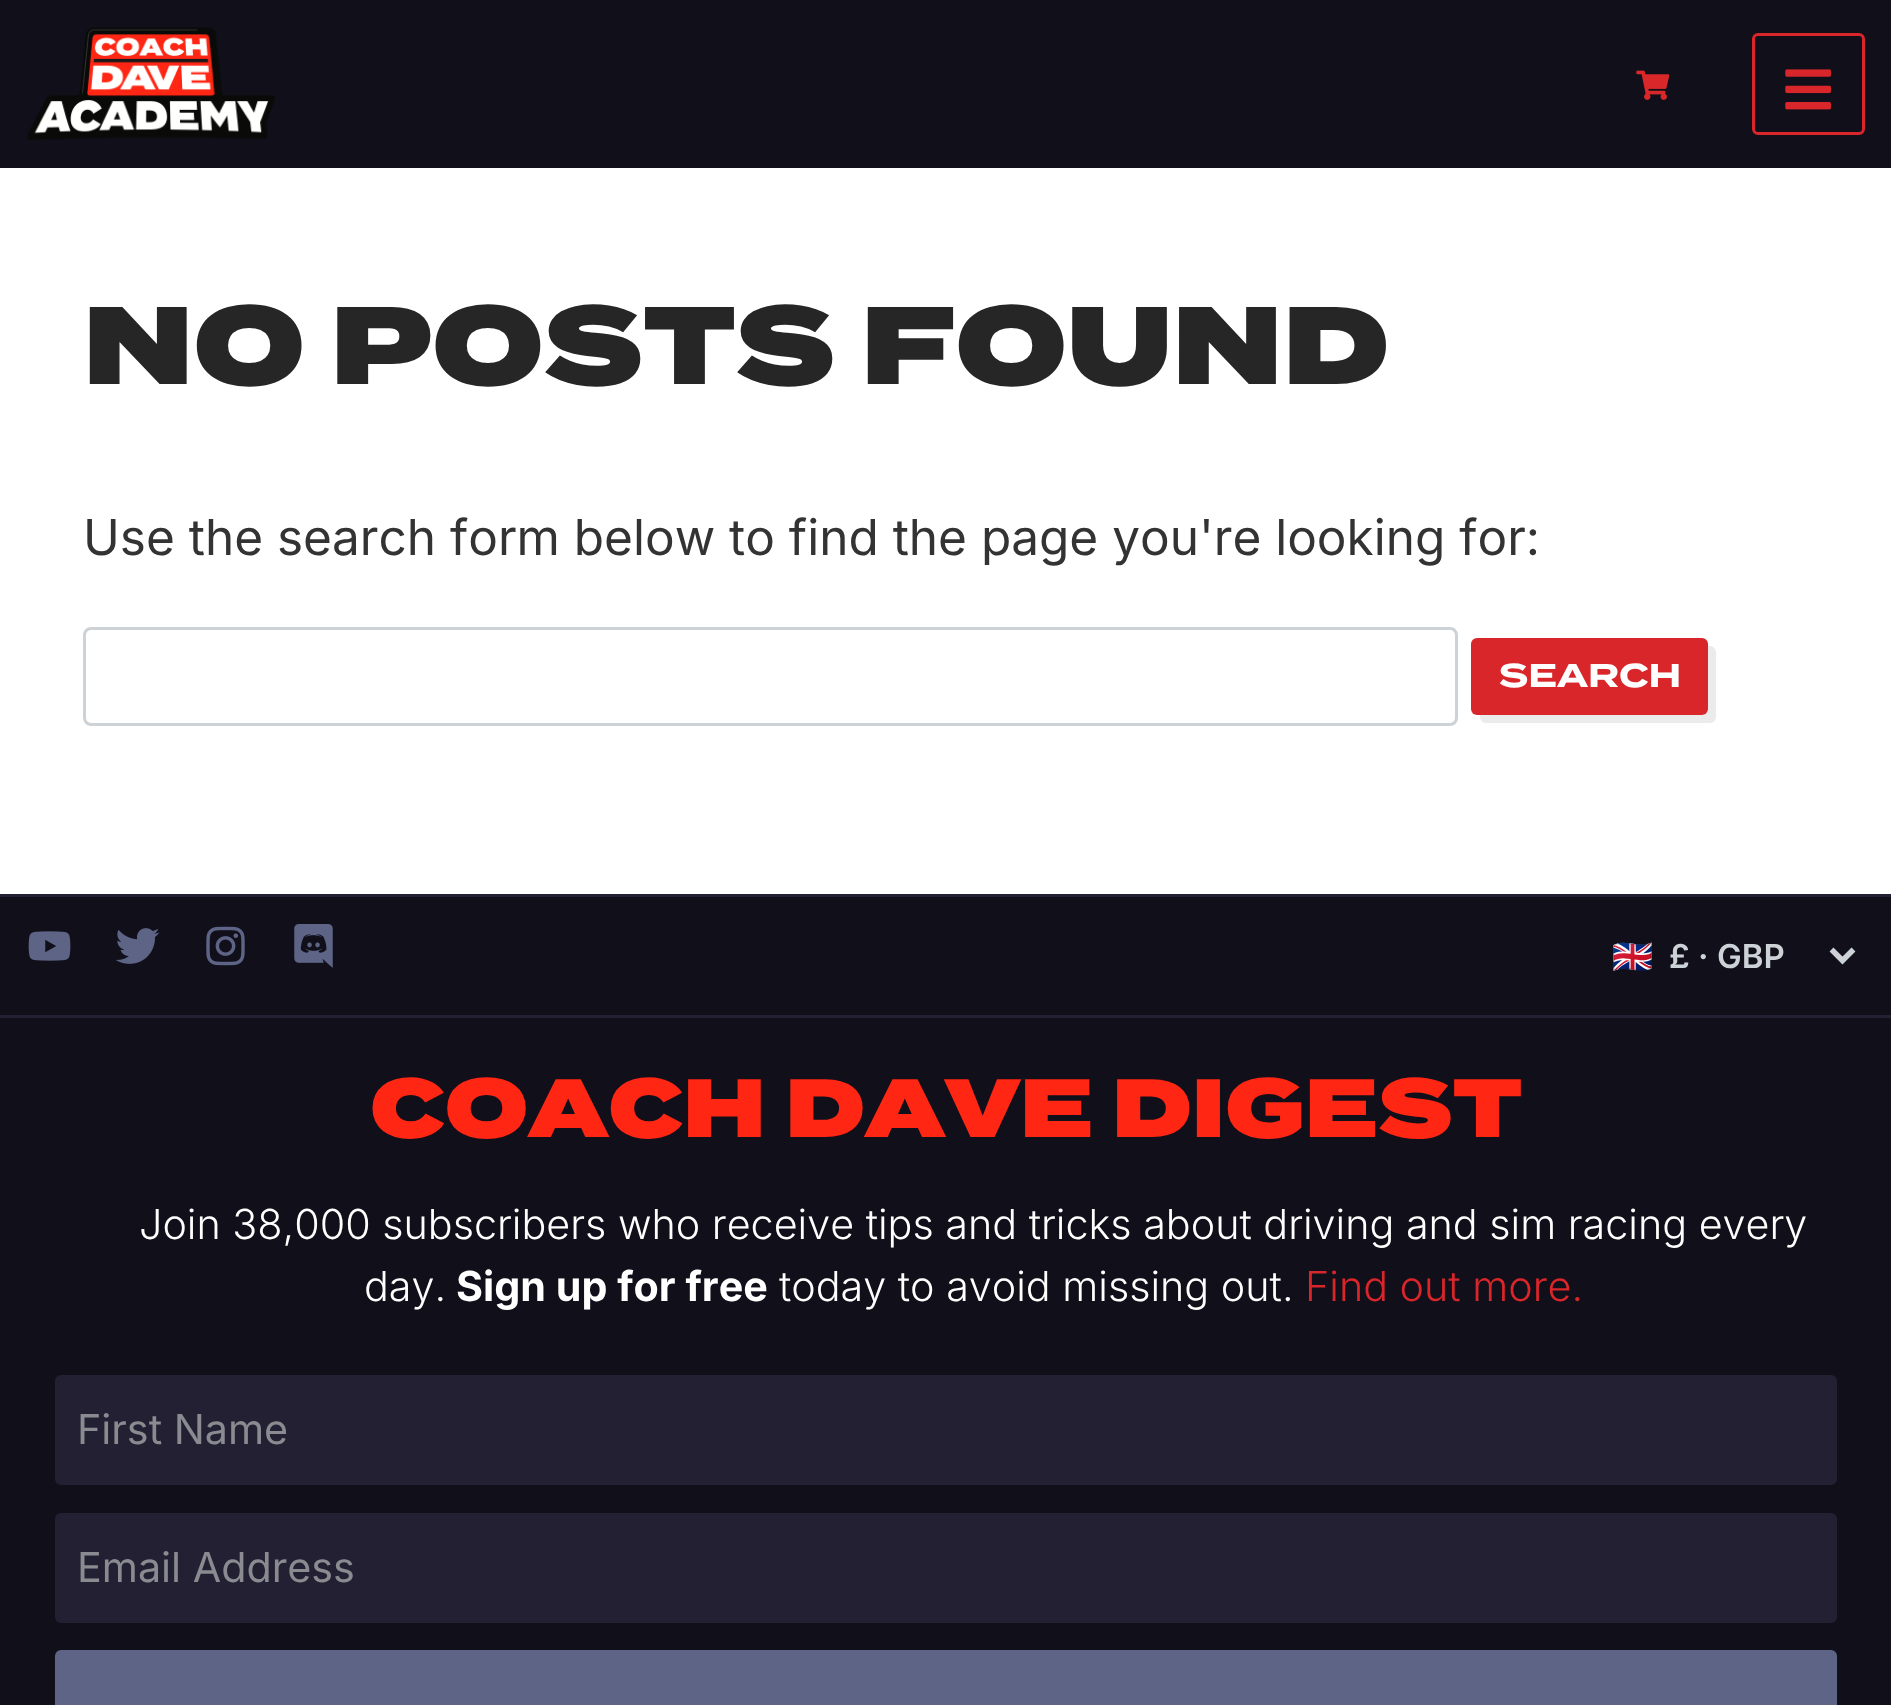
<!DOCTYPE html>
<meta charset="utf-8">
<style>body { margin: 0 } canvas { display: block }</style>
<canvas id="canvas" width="1891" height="1705"></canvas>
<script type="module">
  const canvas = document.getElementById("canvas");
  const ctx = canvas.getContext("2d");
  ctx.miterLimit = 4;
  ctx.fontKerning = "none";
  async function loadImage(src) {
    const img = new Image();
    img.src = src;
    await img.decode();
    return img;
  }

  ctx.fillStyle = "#ffffff";
  ctx.fillRect(0, 0, 1891, 1705);
  ctx.fillStyle = "#100f1a";
  ctx.fillRect(0, 0, 1891, 168);
  ctx.drawImage(await loadImage("img1.png"), 27, 27, 248, 113);
  ctx.drawImage(await loadImage("img2.png"), 1636, 70, 33, 30);
  ctx.beginPath();
  ctx.roundRect(1753.5, 34.5, 110, 99, 4.5);
  ctx.strokeStyle = "#d9262a";
  ctx.lineWidth = 3;
  ctx.stroke();
  ctx.drawImage(await loadImage("img3.png"), 1785, 69, 46, 41);
  ctx.font = "900 110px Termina";
  ctx.fillStyle = "#262626";
  ctx.fillText("NO POSTS FOUND", 83, 384);
  ctx.font = "49.5px Inter";
  ctx.fillStyle = "#333333";
  ctx.fillText("Use the search form below to find the page you're looking for:", 83, 555);
  ctx.beginPath();
  ctx.roundRect(84.5, 628.5, 1372, 96, 6.5);
  ctx.strokeStyle = "#cdd2d7";
  ctx.stroke();
  ctx.fillStyle = "#ebebeb";
  ctx.beginPath();
  ctx.moveTo(1480, 715);
  ctx.lineTo(1480, 717);
  ctx.bezierCurveTo(1480, 720, 1483, 723, 1486, 723);
  ctx.lineTo(1710, 723);
  ctx.bezierCurveTo(1713, 723, 1716, 720, 1716, 717);
  ctx.lineTo(1716, 652);
  ctx.bezierCurveTo(1716, 649, 1713, 646, 1710, 646);
  ctx.lineTo(1708, 646);
  ctx.lineTo(1708, 710);
  ctx.bezierCurveTo(1708, 713, 1705, 715, 1702, 715);
  ctx.closePath();
  ctx.fill();
  ctx.fillStyle = "#d9262a";
  ctx.beginPath();
  ctx.roundRect(1471, 638, 237, 77, 6);
  ctx.fill();
  ctx.font = "bold 33px Termina";
  ctx.fillStyle = "#ffffff";
  ctx.fillText("SEARCH", 1499, 687);
  ctx.fillStyle = "#100f1a";
  ctx.fillRect(0, 897, 1891, 118);
  ctx.fillStyle = "#222032";
  ctx.fillRect(0, 894, 1891, 3);
  ctx.drawImage(await loadImage("img4.png"), 28, 931, 43, 30);
  ctx.drawImage(await loadImage("img5.png"), 116, 928, 44, 36);
  ctx.drawImage(await loadImage("img6.png"), 206, 926, 39, 40);
  ctx.drawImage(await loadImage("img7.png"), 294, 924, 39, 44);
  ctx.beginPath();
  ctx.moveTo(1831.5, 949.5);
  ctx.lineTo(1842.5, 960.5);
  ctx.lineTo(1853.5, 949.5);
  ctx.lineWidth = 5.5;
  ctx.stroke();
  ctx.save();
  ctx.beginPath();
  ctx.rect(1612, 932, 192, 47);
  ctx.clip();
  ctx.font = "bold 33px Noto Color Emoji";
  ctx.fillStyle = "#cdd2d7";
  ctx.fillText("🇬🇧", 1612, 968);
  ctx.restore();
  ctx.font = "600 33px Inter";
  ctx.fillStyle = "#cdd2d7";
  ctx.fillText("£ · GBP", 1669, 968);
  ctx.fillStyle = "#100f1a";
  ctx.fillRect(0, 1018, 1891, 687);
  ctx.fillStyle = "#222032";
  ctx.fillRect(0, 1015, 1891, 3);
  ctx.font = "900 82.5px Termina";
  ctx.fillStyle = "#ff2614";
  ctx.fillText("COACH DAVE", 370, 1137);
  ctx.fillText("DIGEST", 1112, 1137);
  ctx.font = "300 41.25px Inter";
  ctx.fillStyle = "#ffffff";
  ctx.fillText("Join 38,000 subscribers who receive tips and tricks about driving and sim racing every", 139, 1239);
  ctx.fillText("day.", 364, 1301);
  ctx.font = "bold 41.25px Inter";
  ctx.fillText("Sign up for free", 456, 1301);
  ctx.font = "300 41.25px Inter";
  ctx.fillText("today to avoid missing out.", 779, 1301);
  ctx.fillStyle = "#d9262a";
  ctx.fillText("Find out more.", 1305, 1301);
  ctx.fillStyle = "#222032";
  ctx.beginPath();
  ctx.roundRect(55, 1375, 1782, 110, 6);
  ctx.fill();
  ctx.font = "41.25px Inter";
  ctx.fillStyle = "#8a8a91";
  ctx.fillText("First Name", 77, 1444);
  ctx.fillStyle = "#222032";
  ctx.beginPath();
  ctx.roundRect(55, 1513, 1782, 110, 6);
  ctx.fill();
  ctx.fillStyle = "#8a8a91";
  ctx.fillText("Email Address", 77, 1582);
  ctx.fillStyle = "#5d6486";
  ctx.beginPath();
  ctx.roundRect(55, 1650, 1782, 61, 6);
  ctx.fill();
</script>
